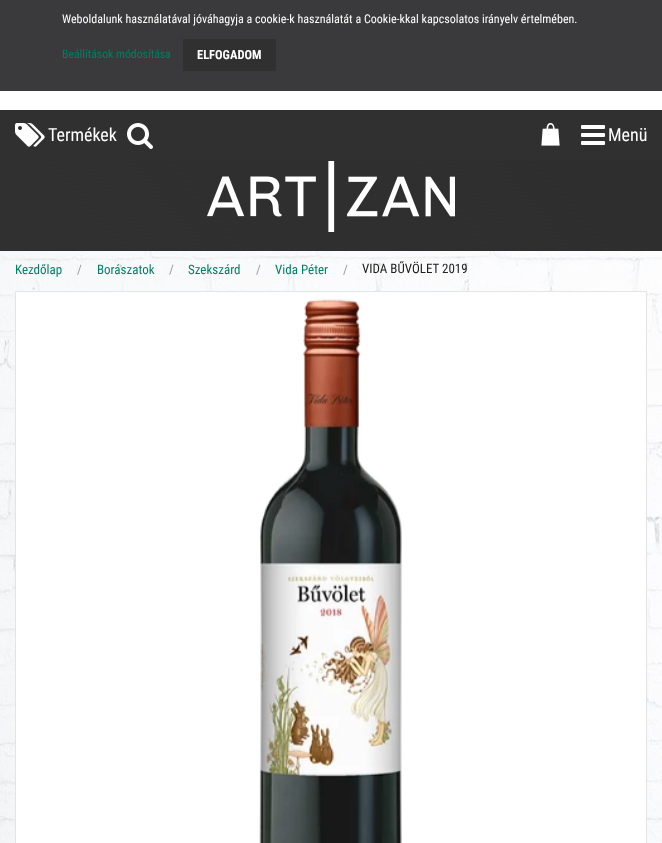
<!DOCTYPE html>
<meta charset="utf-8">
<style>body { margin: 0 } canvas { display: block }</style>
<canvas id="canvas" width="662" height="843"></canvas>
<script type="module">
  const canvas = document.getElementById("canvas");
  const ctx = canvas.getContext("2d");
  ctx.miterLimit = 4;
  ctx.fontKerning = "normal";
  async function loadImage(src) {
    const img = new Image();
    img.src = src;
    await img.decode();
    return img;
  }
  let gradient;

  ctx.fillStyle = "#ffffff";
  ctx.fillRect(0, 0, 662, 843);
  ctx.drawImage(await loadImage("img1.png"), 0, 251, 662, 592);
  ctx.fillStyle = "#3a393b";
  ctx.fillRect(0, 0, 662, 91);
  ctx.font = "12px Roboto Condensed";
  ctx.fillStyle = "#ffffff";
  ctx.fillText("Weboldalunk használatával jóváhagyja a cookie-k használatát a Cookie-kkal kapcsolatos irányelv értelmében.", 62, 23);
  ctx.font = "11.75px Roboto Condensed";
  ctx.fillStyle = "#008064";
  ctx.fillText("Beállítások módosítása", 62, 58);
  ctx.fillStyle = "#303030";
  ctx.fillRect(183, 39, 93, 32);
  ctx.font = "bold 12.5px Roboto Condensed";
  ctx.fillStyle = "#ffffff";
  ctx.fillText("ELFOGADOM", 197, 59);
  ctx.fillStyle = "#303030";
  ctx.fillRect(0, 110, 662, 50);
  ctx.drawImage(await loadImage("img2.png"), 15, 123, 30, 24);
  ctx.font = "18px Roboto Condensed";
  ctx.fillStyle = "#ffffff";
  ctx.fillText("Termékek", 48, 141);
  ctx.drawImage(await loadImage("img3.png"), 127, 123, 26, 26);
  ctx.drawImage(await loadImage("img4.png"), 541, 123, 19, 23);
  ctx.drawImage(await loadImage("img5.png"), 581, 125, 24, 20);
  ctx.fillText("Menü", 608, 141);
  gradient = ctx.createLinearGradient(114, 387, 548, 24);
  gradient.addColorStop(0, "#303030");
  gradient.addColorStop(0.99, "#2e2e2e");
  ctx.fillStyle = gradient;
  ctx.fillRect(0, 160, 662, 91);
  ctx.drawImage(await loadImage("img6.png"), 207, 161, 248, 71);
  ctx.font = "13px Roboto Condensed";
  ctx.fillStyle = "#008064";
  ctx.fillText("Kezdőlap", 15, 274);
  ctx.fillStyle = "#9b9c9c";
  ctx.fillText("/", 77, 274);
  ctx.fillStyle = "#008064";
  ctx.fillText("Borászatok", 97, 274);
  ctx.fillStyle = "#9b9c9c";
  ctx.fillText("/", 169, 274);
  ctx.fillStyle = "#008064";
  ctx.fillText("Szekszárd", 188, 274);
  ctx.fillStyle = "#9b9c9c";
  ctx.fillText("/", 256, 274);
  ctx.fillStyle = "#008064";
  ctx.fillText("Vida Péter", 275, 274);
  ctx.fillStyle = "#9b9c9c";
  ctx.fillText("/", 343, 274);
  ctx.fillStyle = "#222222";
  ctx.fillText("VIDA BŰVÖLET 2019", 362, 273);
  ctx.fillStyle = "#ffffff";
  ctx.beginPath();
  ctx.rect(15.5, 291.5, 631, 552);
  ctx.fill();
  ctx.strokeStyle = "#e4e4e4";
  ctx.stroke();
  ctx.drawImage(await loadImage("img7.png"), 259, 299, 143, 544);
</script>
